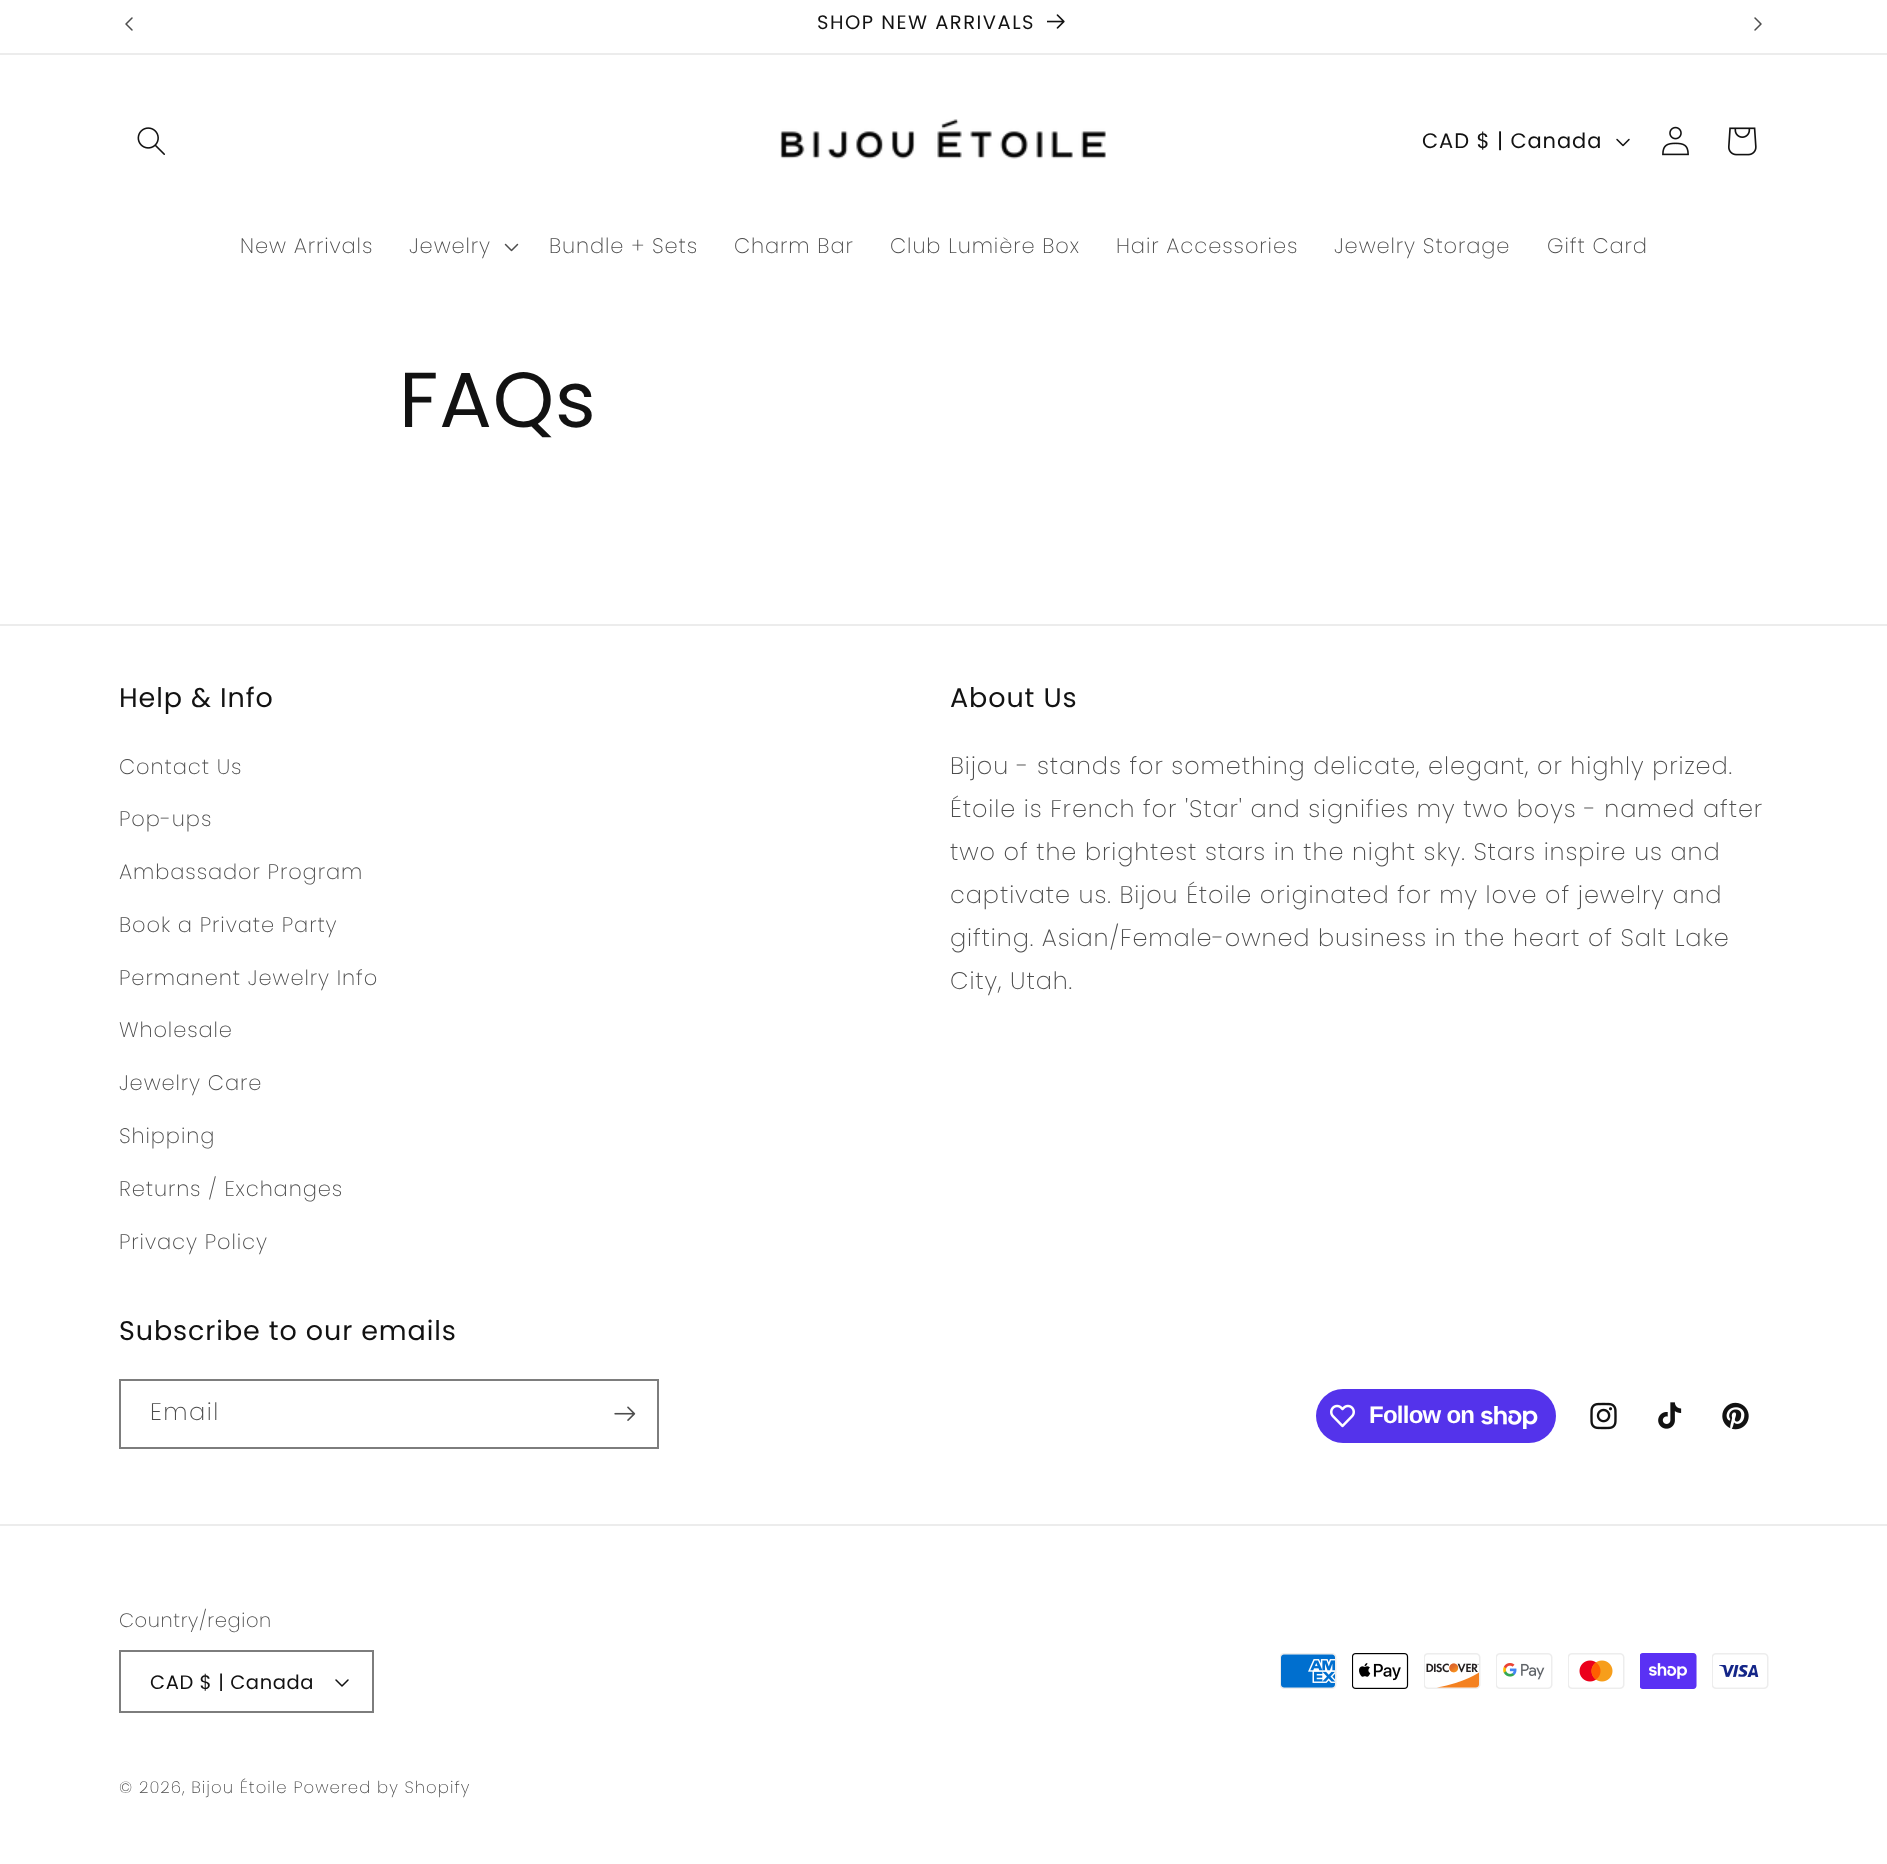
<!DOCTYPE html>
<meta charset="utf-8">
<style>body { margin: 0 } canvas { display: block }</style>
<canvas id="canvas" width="1887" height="1864"></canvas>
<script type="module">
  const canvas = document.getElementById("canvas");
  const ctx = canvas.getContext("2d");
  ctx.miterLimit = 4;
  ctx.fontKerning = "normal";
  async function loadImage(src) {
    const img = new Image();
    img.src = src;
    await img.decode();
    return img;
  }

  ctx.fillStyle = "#ffffff";
  ctx.fillRect(0, 0, 1887, 1864);
  ctx.fillStyle = "#ececec";
  ctx.fillRect(0, 53, 1887, 2);
  ctx.drawImage(await loadImage("img1.png"), 125, 17, 8, 14);
  ctx.letterSpacing = "1.5px";
  ctx.font = "19.5px Poppins";
  ctx.fillStyle = "#121212";
  ctx.fillText("SHOP NEW ARRIVALS", 817, 29);
  ctx.drawImage(await loadImage("img2.png"), 1047, 14, 18, 15);
  ctx.drawImage(await loadImage("img3.png"), 1754, 17, 8, 14);
  ctx.drawImage(await loadImage("img4.png"), 137, 127, 28, 28);
  ctx.drawImage(await loadImage("img5.png"), 780, 119, 326, 40);
  ctx.letterSpacing = "0.9px";
  ctx.font = "21px Poppins";
  ctx.fillText("CAD $ | Canada", 1422, 148);
  ctx.drawImage(await loadImage("img6.png"), 1616, 138, 14, 9);
  ctx.drawImage(await loadImage("img7.png"), 1662, 126, 27, 30);
  ctx.drawImage(await loadImage("img8.png"), 1728, 127, 29, 29);
  ctx.font = "300 21px Poppins";
  ctx.fillStyle = "#4d4d4d";
  ctx.fillText("New Arrivals", 240, 253);
  ctx.fillText("Jewelry", 409, 253);
  ctx.drawImage(await loadImage("img9.png"), 504, 243, 15, 9);
  ctx.fillText("Bundle + Sets", 549, 253);
  ctx.fillText("Charm Bar", 734, 253);
  ctx.fillText("Club Lumière Box", 890, 253);
  ctx.fillText("Hair Accessories", 1116, 253);
  ctx.fillText("Jewelry Storage", 1334, 253);
  ctx.fillText("Gift Card", 1547, 253);
  ctx.font = "78px Poppins";
  ctx.fillStyle = "#121212";
  ctx.fillText("FAQs", 399, 427);
  ctx.fillStyle = "#ececec";
  ctx.fillRect(0, 624, 1887, 2);
  ctx.font = "27px Poppins";
  ctx.fillStyle = "#121212";
  ctx.fillText("Help & Info", 119, 707);
  ctx.font = "300 21px Poppins";
  ctx.fillStyle = "#4d4d4d";
  ctx.fillText("Contact Us", 119, 774);
  ctx.fillText("Pop-ups", 119, 826);
  ctx.fillText("Ambassador Program", 119, 879);
  ctx.fillText("Book a Private Party", 119, 932);
  ctx.fillText("Permanent Jewelry Info", 119, 985);
  ctx.fillText("Wholesale", 119, 1037);
  ctx.fillText("Jewelry Care", 119, 1090);
  ctx.fillText("Shipping", 119, 1143);
  ctx.fillText("Returns / Exchanges", 119, 1196);
  ctx.fillText("Privacy Policy", 119, 1249);
  ctx.font = "27px Poppins";
  ctx.fillStyle = "#121212";
  ctx.fillText("About Us", 950, 707);
  ctx.font = "300 24px Poppins";
  ctx.fillStyle = "#4d4d4d";
  ctx.fillText("Bijou - stands for something delicate, elegant, or highly prized.", 950, 774);
  ctx.fillText("Étoile is French for 'Star' and signifies my two boys - named after", 950, 817);
  ctx.fillText("two of the brightest stars in the night sky. Stars inspire us and", 950, 860);
  ctx.fillText("captivate us. Bijou Étoile originated for my love of jewelry and", 950, 903);
  ctx.fillText("gifting. Asian/Female-owned business in the heart of Salt Lake", 950, 946);
  ctx.fillText("City, Utah.", 950, 989);
  ctx.font = "27px Poppins";
  ctx.fillStyle = "#121212";
  ctx.fillText("Subscribe to our emails", 119, 1340);
  ctx.strokeStyle = "#7d7d7d";
  ctx.lineWidth = 2;
  ctx.strokeRect(120, 1380, 538, 68);
  ctx.letterSpacing = "1.5px";
  ctx.font = "300 24px Poppins";
  ctx.fillStyle = "#4d4d4d";
  ctx.fillText("Email", 150, 1420);
  ctx.drawImage(await loadImage("img10.png"), 614, 1406, 22, 15);
  ctx.fillStyle = "#5433eb";
  ctx.beginPath();
  ctx.roundRect(1316, 1389, 240, 54, 27);
  ctx.fill();
  ctx.drawImage(await loadImage("img11.png"), 1330, 1404, 25, 24);
  ctx.letterSpacing = "-0.75px";
  ctx.font = "bold 24px Liberation Sans";
  ctx.fillStyle = "#ffffff";
  ctx.fillText("Follow on", 1369, 1423);
  ctx.drawImage(await loadImage("img12.png"), 1481, 1406, 57, 23);
  ctx.drawImage(await loadImage("img13.png"), 1590, 1402, 27, 28);
  ctx.drawImage(await loadImage("img14.png"), 1658, 1402, 24, 27);
  ctx.drawImage(await loadImage("img15.png"), 1722, 1402, 27, 28);
  ctx.fillStyle = "#ececec";
  ctx.fillRect(0, 1524, 1887, 2);
  ctx.letterSpacing = "0.6px";
  ctx.font = "300 19.5px Poppins";
  ctx.fillStyle = "#4d4d4d";
  ctx.fillText("Country/region", 119, 1627);
  ctx.drawImage(await loadImage("img16.png"), 335, 1679, 14, 8);
  ctx.strokeRect(120, 1651, 253, 61);
  ctx.font = "19.5px Poppins";
  ctx.fillStyle = "#121212";
  ctx.fillText("CAD $ | Canada", 150, 1689);
  ctx.drawImage(await loadImage("img17.png"), 1280, 1653, 57, 36);
  ctx.drawImage(await loadImage("img18.png"), 1352, 1653, 57, 36);
  ctx.drawImage(await loadImage("img19.png"), 1424, 1653, 57, 36);
  ctx.drawImage(await loadImage("img20.png"), 1496, 1653, 57, 36);
  ctx.drawImage(await loadImage("img21.png"), 1568, 1653, 57, 36);
  ctx.drawImage(await loadImage("img22.png"), 1640, 1653, 57, 36);
  ctx.drawImage(await loadImage("img23.png"), 1712, 1653, 57, 36);
  ctx.letterSpacing = "1.05px";
  ctx.font = "300 16.5px Poppins";
  ctx.fillStyle = "#4d4d4d";
  ctx.fillText("© 2026, Bijou Étoile Powered by Shopify", 119, 1793);
</script>
